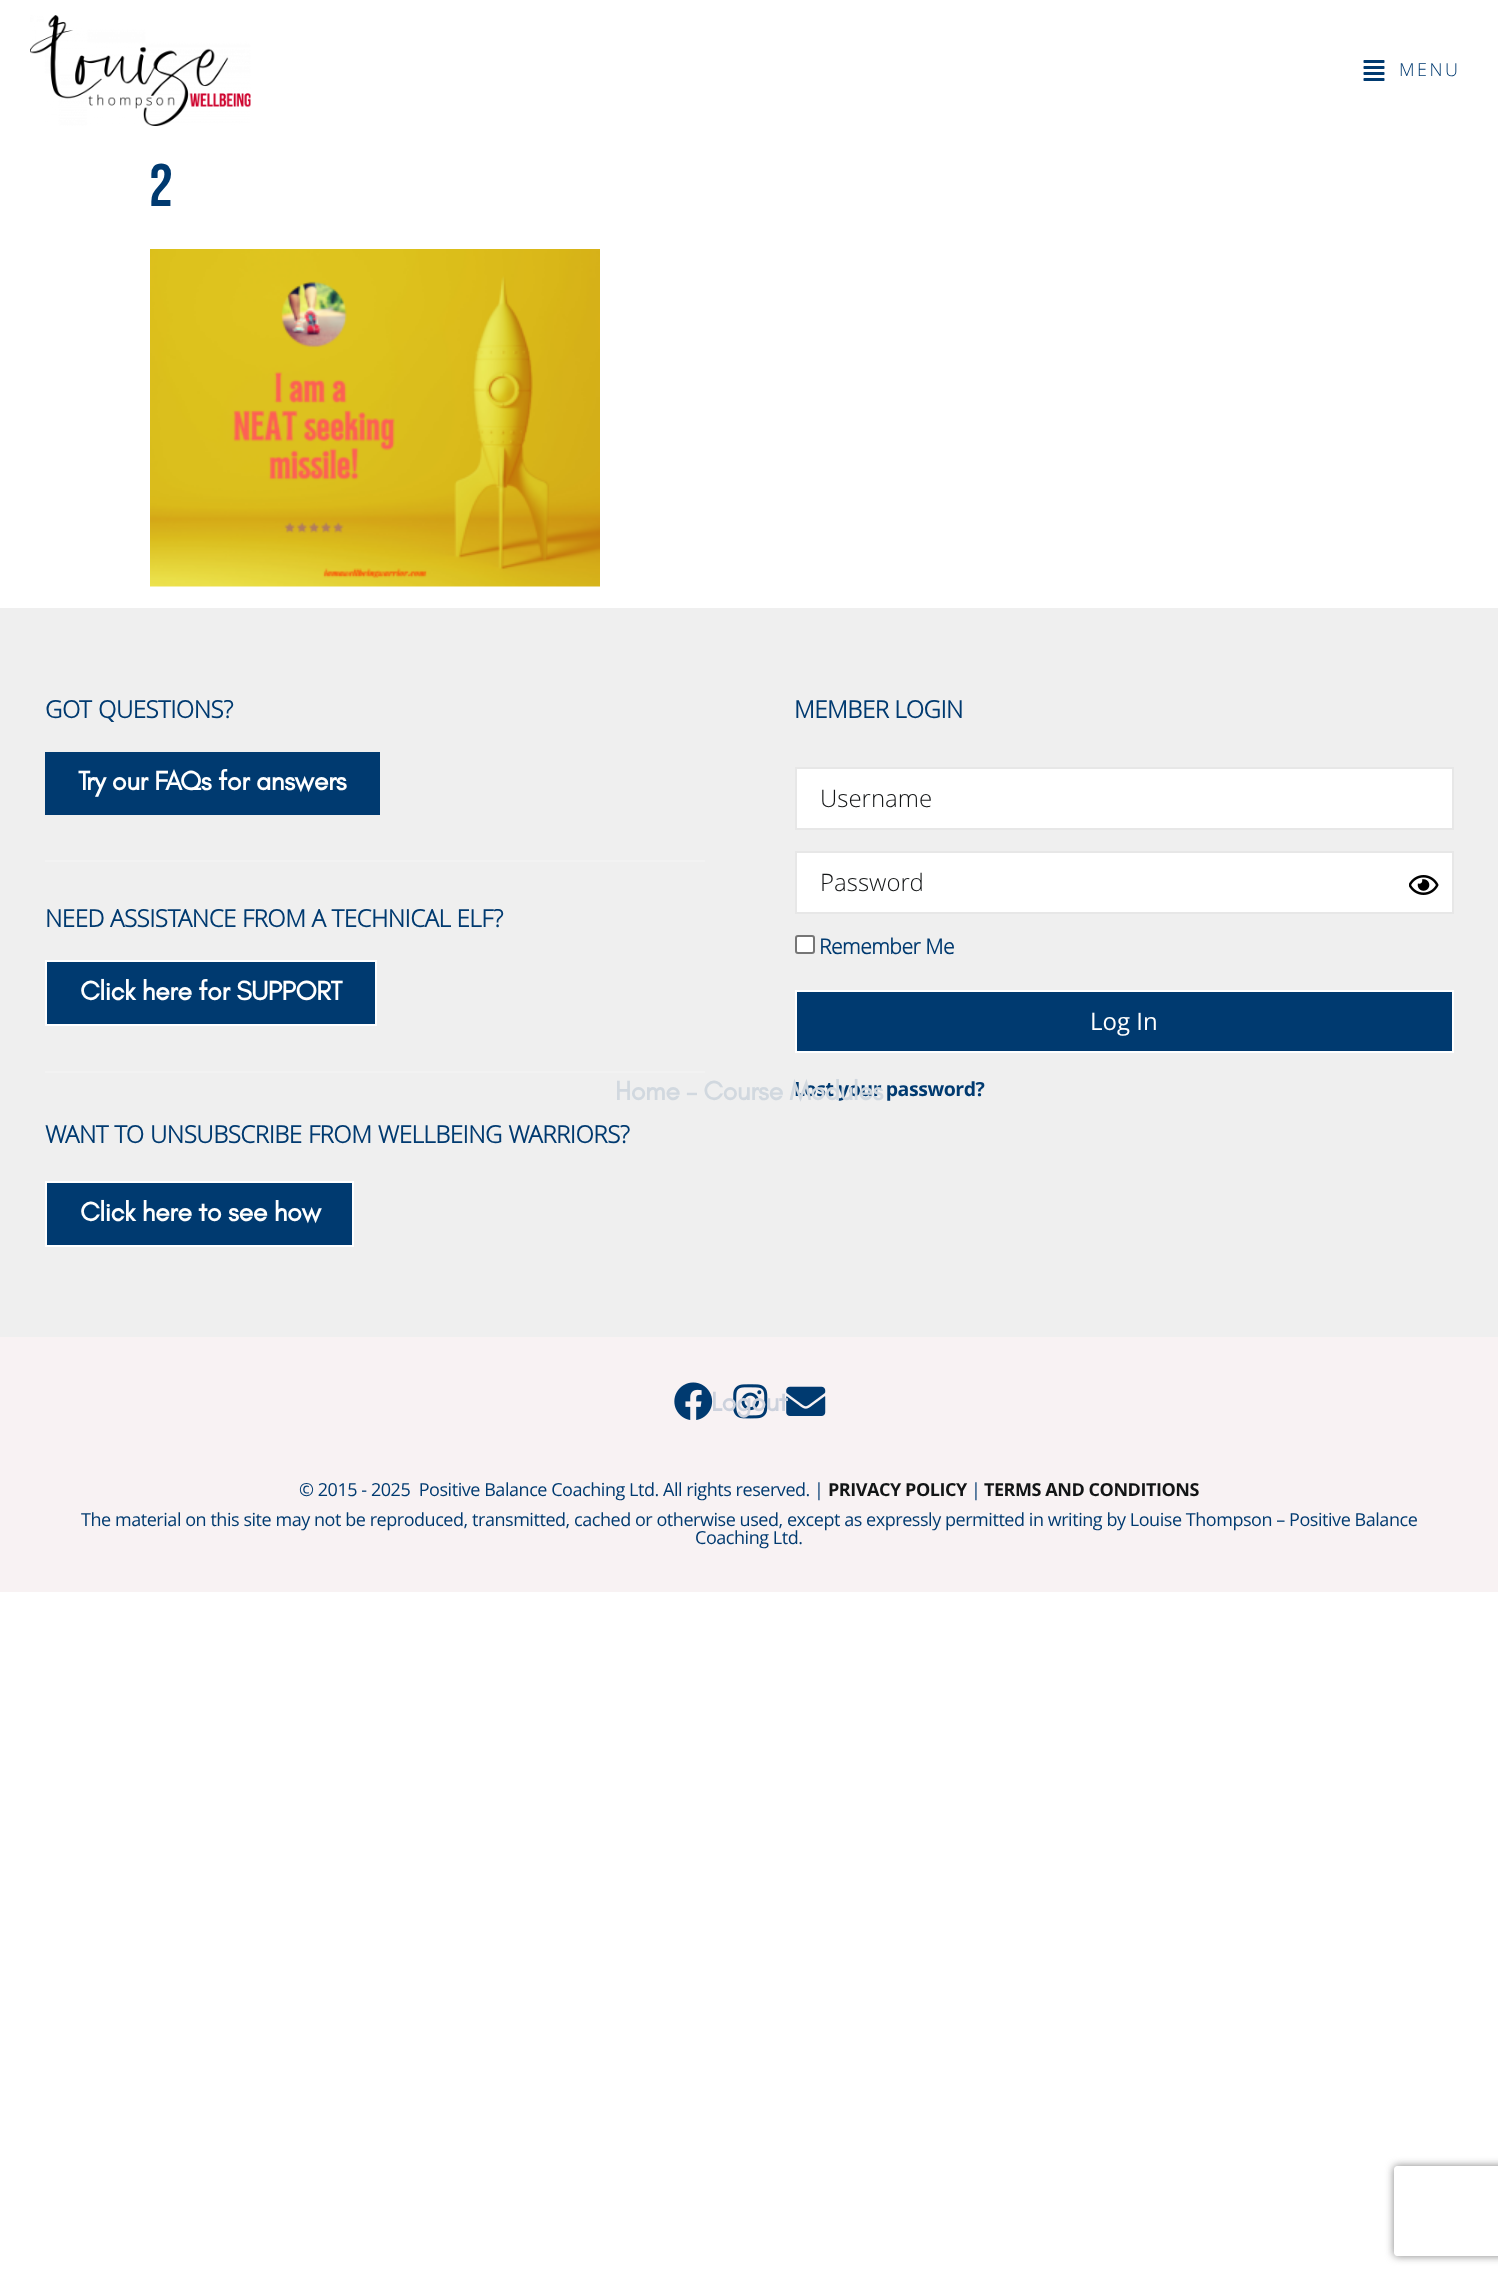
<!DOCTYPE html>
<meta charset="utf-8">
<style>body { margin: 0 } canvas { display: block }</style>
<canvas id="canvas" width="1498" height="2277"></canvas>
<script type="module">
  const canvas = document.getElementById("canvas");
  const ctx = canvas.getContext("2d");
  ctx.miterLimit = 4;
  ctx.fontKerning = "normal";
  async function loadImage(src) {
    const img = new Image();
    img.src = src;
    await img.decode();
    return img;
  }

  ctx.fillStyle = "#ffffff";
  ctx.fillRect(0, 0, 1498, 2277);
  ctx.letterSpacing = "-0.45px";
  ctx.font = "60px Bebas Neue";
  ctx.fillStyle = "#003a70";
  ctx.fillText("2", 149, 206);
  ctx.drawImage(await loadImage("img1.png"), 150, 249, 450, 338);
  ctx.drawImage(await loadImage("img2.png"), 30, 15, 221, 111);
  ctx.drawImage(await loadImage("img3.png"), 1363, 60, 22, 21);
  ctx.letterSpacing = "2.5px";
  ctx.font = "300 18px 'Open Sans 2'";
  ctx.fillText("MENU", 1399, 76);
  ctx.fillStyle = "#efefef";
  ctx.fillRect(0, 608, 1498, 729);
  ctx.letterSpacing = "-0.45px";
  ctx.font = "bold 19.5px 'Open Sans 2'";
  ctx.fillStyle = "#003a70";
  ctx.fillText("Lost your password?", 794, 1096);
  ctx.font = "bold 27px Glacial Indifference";
  ctx.fillStyle = "#d1d8df";
  ctx.fillText("Home – Course Modules", 615, 1100);
  ctx.fillStyle = "#f8f2f3";
  ctx.fillRect(0, 1337, 1498, 255);
  ctx.drawImage(await loadImage("img6.png"), 733, 1384, 35, 35);
  ctx.drawImage(await loadImage("img7.png"), 786, 1386, 40, 30);
  ctx.fillStyle = "#ccd1dc";
  ctx.fillText("Logout", 711, 1411);
  ctx.wordSpacing = "1px";
  ctx.font = "bold 24px Open Sans";
  ctx.fillStyle = "#003a70";
  ctx.fillText("GOT QUESTIONS?", 45, 718);
  ctx.fillRect(45, 752, 335, 63);
  ctx.wordSpacing = "0px";
  ctx.font = "bold 27px Glacial Indifference";
  ctx.fillStyle = "#ffffff";
  ctx.fillText("Try our FAQs for answers", 78, 790);
  ctx.fillStyle = "#f2f2f2";
  ctx.fillRect(45, 860, 660, 2);
  ctx.wordSpacing = "0.25px";
  ctx.font = "bold 24px Open Sans";
  ctx.fillStyle = "#003a70";
  ctx.fillText("NEED ASSISTANCE FROM A TECHNICAL ELF?", 45, 927);
  ctx.beginPath();
  ctx.rect(46, 961, 330, 64);
  ctx.fill();
  ctx.strokeStyle = "#ffffff";
  ctx.lineWidth = 2;
  ctx.stroke();
  ctx.wordSpacing = "0px";
  ctx.font = "bold 27px Glacial Indifference";
  ctx.fillStyle = "#ffffff";
  ctx.fillText("Click here for SUPPORT", 80, 1000);
  ctx.fillStyle = "#f2f2f2";
  ctx.fillRect(45, 1071, 660, 2);
  ctx.wordSpacing = "0.5px";
  ctx.font = "bold 24px Open Sans";
  ctx.fillStyle = "#003a70";
  ctx.fillText("WANT TO UNSUBSCRIBE FROM WELLBEING WARRIORS?", 45, 1143);
  ctx.beginPath();
  ctx.rect(46, 1182, 307, 64);
  ctx.fill();
  ctx.stroke();
  ctx.wordSpacing = "0px";
  ctx.font = "bold 27px Glacial Indifference";
  ctx.fillStyle = "#ffffff";
  ctx.fillText("Click here to see how", 80, 1221);
  ctx.font = "bold 24px Open Sans";
  ctx.fillStyle = "#003a70";
  ctx.fillText("MEMBER LOGIN", 794, 718);
  ctx.fillStyle = "#ffffff";
  ctx.beginPath();
  ctx.rect(796, 768, 657, 61);
  ctx.fill();
  ctx.strokeStyle = "#e7e7e7";
  ctx.stroke();
  ctx.letterSpacing = "0px";
  ctx.font = "300 24px Open Sans";
  ctx.fillStyle = "#131516";
  ctx.fillText("Username", 820, 807);
  ctx.fillStyle = "#ffffff";
  ctx.beginPath();
  ctx.rect(796, 852, 657, 61);
  ctx.fill();
  ctx.stroke();
  ctx.fillStyle = "#131516";
  ctx.fillText("Password", 820, 891);
  ctx.drawImage(await loadImage("img4.png"), 1409, 875, 30, 20);
  ctx.fillStyle = "#ffffff";
  ctx.beginPath();
  ctx.roundRect(796, 936, 18, 17, 2);
  ctx.fill();
  ctx.strokeStyle = "#767676";
  ctx.stroke();
  ctx.letterSpacing = "-0.45px";
  ctx.font = "bold 21px Open Sans";
  ctx.fillStyle = "#003a70";
  ctx.fillText("Remember Me", 819, 954);
  ctx.beginPath();
  ctx.rect(796, 991, 657, 61);
  ctx.fill();
  ctx.strokeStyle = "#ffffff";
  ctx.stroke();
  ctx.letterSpacing = "0px";
  ctx.font = "24px Open Sans";
  ctx.fillStyle = "#ffffff";
  ctx.fillText("Log In", 1090, 1030);
  ctx.drawImage(await loadImage("img5.png"), 674, 1382, 39, 38);
  ctx.letterSpacing = "-0.45px";
  ctx.font = "18px Open Sans";
  ctx.fillStyle = "#003a70";
  ctx.fillText("© 2015 - 2025  Positive Balance Coaching Ltd. All rights reserved. |", 299, 1496);
  ctx.font = "bold 18px 'Open Sans 2'";
  ctx.fillStyle = "#131516";
  ctx.fillText("PRIVACY POLICY", 828, 1496);
  ctx.font = "18px Open Sans";
  ctx.fillStyle = "#003a70";
  ctx.fillText("|", 971, 1496);
  ctx.font = "bold 18px 'Open Sans 2'";
  ctx.fillStyle = "#131516";
  ctx.fillText("TERMS AND CONDITIONS", 984, 1496);
  ctx.font = "18px Open Sans";
  ctx.fillStyle = "#003a70";
  ctx.fillText("The material on this site may not be reproduced, transmitted, cached or otherwise used, except as expressly permitted in writing by Louise Thompson – Positive Balance", 81, 1526);
  ctx.fillText("Coaching Ltd.", 695, 1544);
  ctx.save();
  ctx.beginPath();
  ctx.moveTo(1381, 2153);
  ctx.lineTo(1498, 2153);
  ctx.lineTo(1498, 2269);
  ctx.lineTo(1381, 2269);
  ctx.closePath();
  ctx.moveTo(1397, 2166);
  ctx.lineTo(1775, 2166);
  ctx.bezierCurveTo(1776.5, 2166, 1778, 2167.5, 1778, 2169);
  ctx.lineTo(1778, 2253);
  ctx.bezierCurveTo(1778, 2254.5, 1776.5, 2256, 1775, 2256);
  ctx.lineTo(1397, 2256);
  ctx.bezierCurveTo(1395.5, 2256, 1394, 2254.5, 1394, 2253);
  ctx.lineTo(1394, 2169);
  ctx.bezierCurveTo(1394, 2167.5, 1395.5, 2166, 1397, 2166);
  ctx.closePath();
  ctx.clip("evenodd");
  ctx.fillStyle = "#808080";
  ctx.filter = "blur(4px)";
  ctx.beginPath();
  ctx.roundRect(1394, 2166, 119, 90, 3);
  ctx.fill();
  ctx.filter = "none";
  ctx.restore();
</script>
